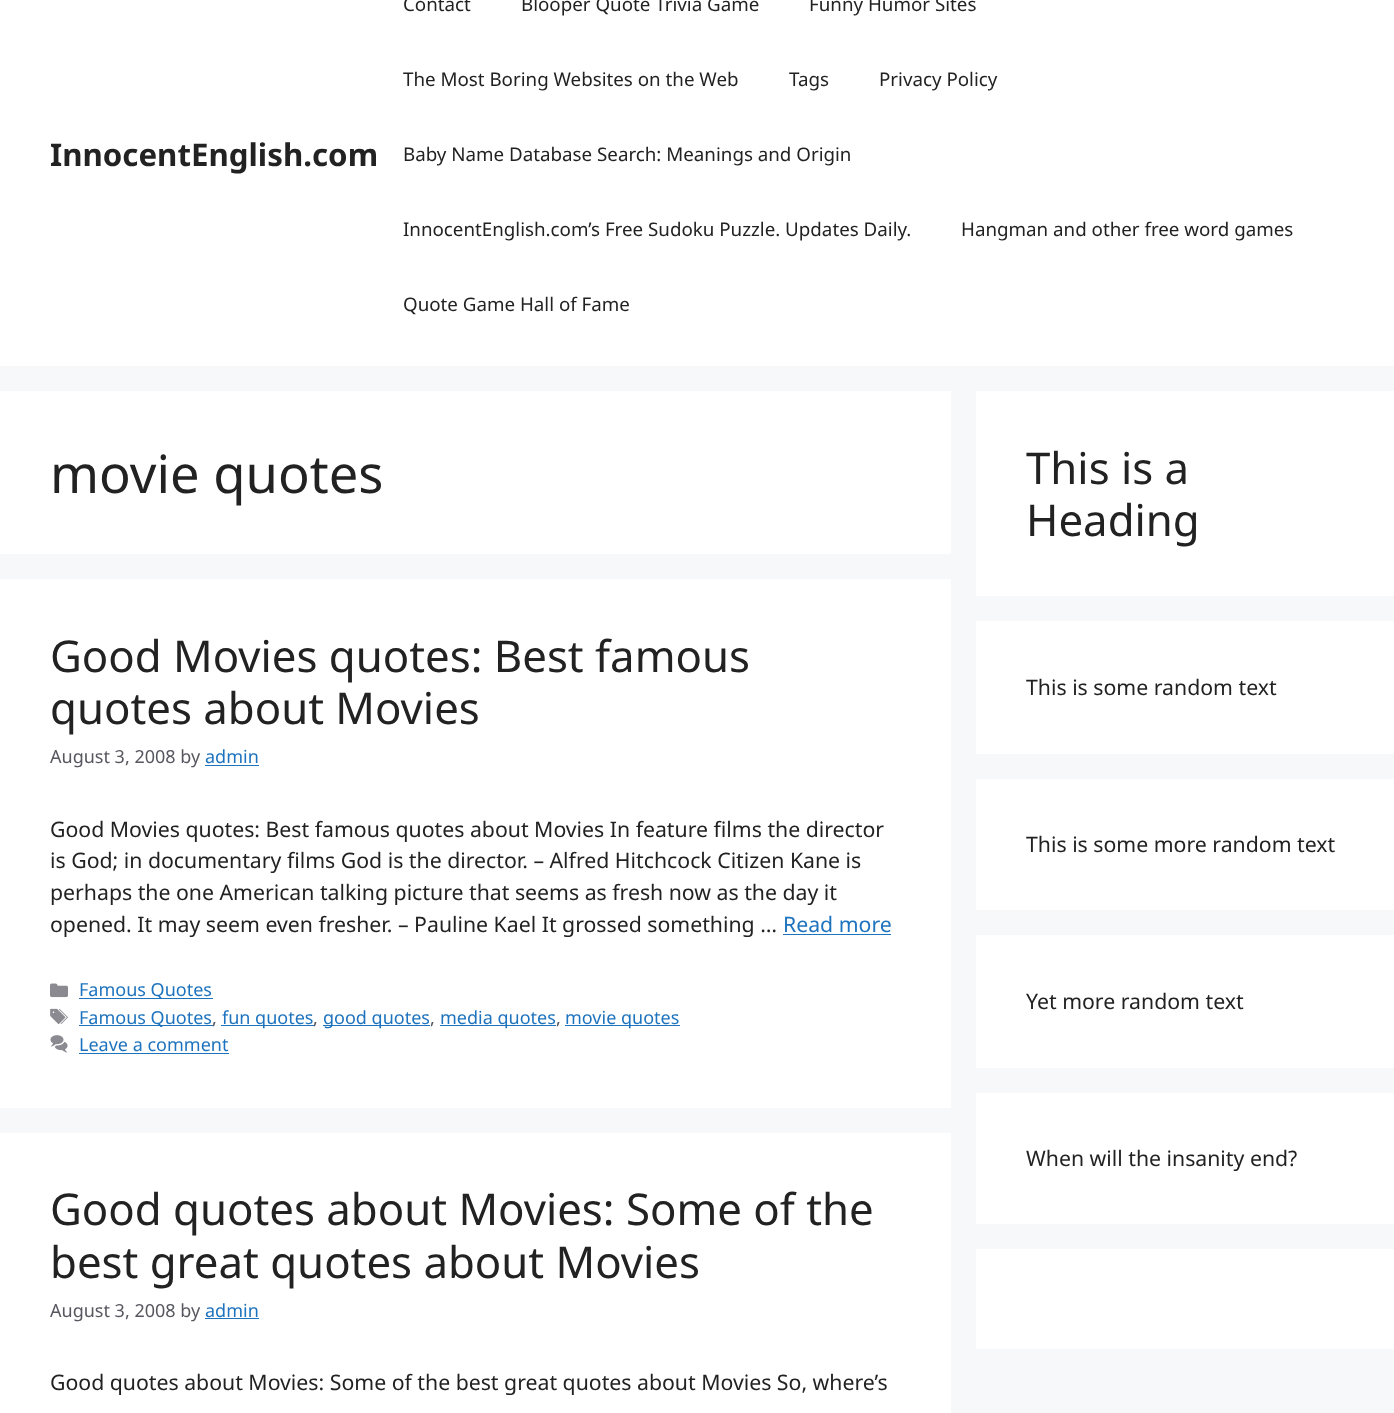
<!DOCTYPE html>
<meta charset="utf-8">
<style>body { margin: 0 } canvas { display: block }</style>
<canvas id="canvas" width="1394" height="1413"></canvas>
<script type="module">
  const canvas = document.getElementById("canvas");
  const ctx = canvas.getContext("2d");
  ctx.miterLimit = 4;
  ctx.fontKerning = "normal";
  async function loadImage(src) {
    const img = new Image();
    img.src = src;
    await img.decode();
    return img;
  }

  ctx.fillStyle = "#f7f8f9";
  ctx.fillRect(0, 0, 1394, 1413);
  ctx.fillStyle = "#ffffff";
  ctx.fillRect(0, 0, 1394, 366);
  ctx.font = "bold 31.25px Noto Sans";
  ctx.fillStyle = "#222222";
  ctx.fillText("InnocentEnglish.com", 50, 166);
  ctx.font = "18.75px Noto Sans";
  ctx.fillText("Contact", 403, 11);
  ctx.fillText("Blooper Quote Trivia Game", 521, 11);
  ctx.fillText("Funny Humor Sites", 809, 11);
  ctx.fillText("The Most Boring Websites on the Web", 403, 86);
  ctx.fillText("Tags", 789, 86);
  ctx.fillText("Privacy Policy", 879, 86);
  ctx.fillText("Baby Name Database Search: Meanings and Origin", 403, 161);
  ctx.fillText("InnocentEnglish.com’s Free Sudoku Puzzle. Updates Daily.", 403, 236);
  ctx.fillText("Hangman and other free word games", 961, 236);
  ctx.fillText("Quote Game Hall of Fame", 403, 311);
  ctx.fillStyle = "#ffffff";
  ctx.fillRect(0, 391, 951, 163);
  ctx.font = "52.5px Noto Sans";
  ctx.fillStyle = "#222222";
  ctx.fillText("movie quotes", 50, 493);
  ctx.fillStyle = "#ffffff";
  ctx.fillRect(0, 579, 951, 529);
  ctx.font = "43.75px Noto Sans";
  ctx.fillStyle = "#222222";
  ctx.fillText("Good Movies quotes: Best famous", 50, 672);
  ctx.fillText("quotes about Movies", 50, 724);
  ctx.font = "18px Noto Sans";
  ctx.fillStyle = "#575760";
  ctx.fillText("August 3, 2008 by", 50, 763);
  ctx.fillStyle = "#1e73be";
  ctx.fillText("admin", 205, 763);
  ctx.fillRect(205, 765, 54, 1);
  ctx.font = "21.25px Noto Sans";
  ctx.fillStyle = "#222222";
  ctx.fillText("Good Movies quotes: Best famous quotes about Movies In feature films the director", 50, 837);
  ctx.fillText("is God; in documentary films God is the director. – Alfred Hitchcock Citizen Kane is", 50, 868);
  ctx.fillText("perhaps the one American talking picture that seems as fresh now as the day it", 50, 900);
  ctx.fillText("opened. It may seem even fresher. – Pauline Kael It grossed something …", 50, 932);
  ctx.fillStyle = "#1e73be";
  ctx.fillText("Read more", 783, 932);
  ctx.fillRect(783, 934, 108, 1);
  ctx.drawImage(await loadImage("img1.png"), 50, 983, 18, 15);
  ctx.fillRect(79, 998, 134, 1);
  ctx.font = "18px Noto Sans";
  ctx.fillText("Famous Quotes", 79, 996);
  ctx.drawImage(await loadImage("img2.png"), 50, 1008, 18, 16);
  ctx.fillRect(79, 1025, 134, 1);
  ctx.fillText("Famous Quotes", 79, 1024);
  ctx.fillStyle = "#575760";
  ctx.fillText(",", 212, 1024);
  ctx.fillStyle = "#1e73be";
  ctx.fillRect(221, 1025, 93, 1);
  ctx.fillText("fun quotes", 222, 1024);
  ctx.fillStyle = "#575760";
  ctx.fillText(",", 313, 1024);
  ctx.fillStyle = "#1e73be";
  ctx.fillRect(323, 1025, 107, 1);
  ctx.fillText("good quotes", 323, 1024);
  ctx.fillStyle = "#575760";
  ctx.fillText(",", 430, 1024);
  ctx.fillStyle = "#1e73be";
  ctx.fillRect(440, 1025, 116, 1);
  ctx.fillText("media quotes", 440, 1024);
  ctx.fillStyle = "#575760";
  ctx.fillText(",", 556, 1024);
  ctx.fillStyle = "#1e73be";
  ctx.fillRect(565, 1025, 115, 1);
  ctx.fillText("movie quotes", 565, 1024);
  ctx.drawImage(await loadImage("img3.png"), 50, 1035, 18, 18);
  ctx.fillText("Leave a comment", 79, 1051);
  ctx.fillRect(79, 1053, 150, 1);
  ctx.fillStyle = "#ffffff";
  ctx.fillRect(0, 1133, 951, 280);
  ctx.font = "43.75px Noto Sans";
  ctx.fillStyle = "#222222";
  ctx.fillText("Good quotes about Movies: Some of the", 50, 1225);
  ctx.fillText("best great quotes about Movies", 50, 1278);
  ctx.font = "18px Noto Sans";
  ctx.fillStyle = "#575760";
  ctx.fillText("August 3, 2008 by", 50, 1317);
  ctx.fillStyle = "#1e73be";
  ctx.fillText("admin", 205, 1317);
  ctx.fillRect(205, 1318, 54, 1);
  ctx.font = "21.25px Noto Sans";
  ctx.fillStyle = "#222222";
  ctx.fillText("Good quotes about Movies: Some of the best great quotes about Movies So, where’s", 50, 1390);
  ctx.fillStyle = "#ffffff";
  ctx.fillRect(976, 391, 418, 205);
  ctx.font = "43.75px Noto Sans";
  ctx.fillStyle = "#222222";
  ctx.fillText("This is a", 1026, 484);
  ctx.fillText("Heading", 1026, 536);
  ctx.fillStyle = "#ffffff";
  ctx.fillRect(976, 621, 418, 133);
  ctx.font = "21.25px Noto Sans";
  ctx.fillStyle = "#222222";
  ctx.fillText("This is some random text", 1026, 695);
  ctx.fillStyle = "#ffffff";
  ctx.fillRect(976, 779, 418, 131);
  ctx.fillStyle = "#222222";
  ctx.fillText("This is some more random text", 1026, 852);
  ctx.fillStyle = "#ffffff";
  ctx.fillRect(976, 935, 418, 133);
  ctx.fillStyle = "#222222";
  ctx.fillText("Yet more random text", 1026, 1009);
  ctx.fillStyle = "#ffffff";
  ctx.fillRect(976, 1093, 418, 131);
  ctx.fillStyle = "#222222";
  ctx.fillText("When will the insanity end?", 1026, 1166);
  ctx.fillStyle = "#ffffff";
  ctx.fillRect(976, 1249, 418, 100);
</script>
